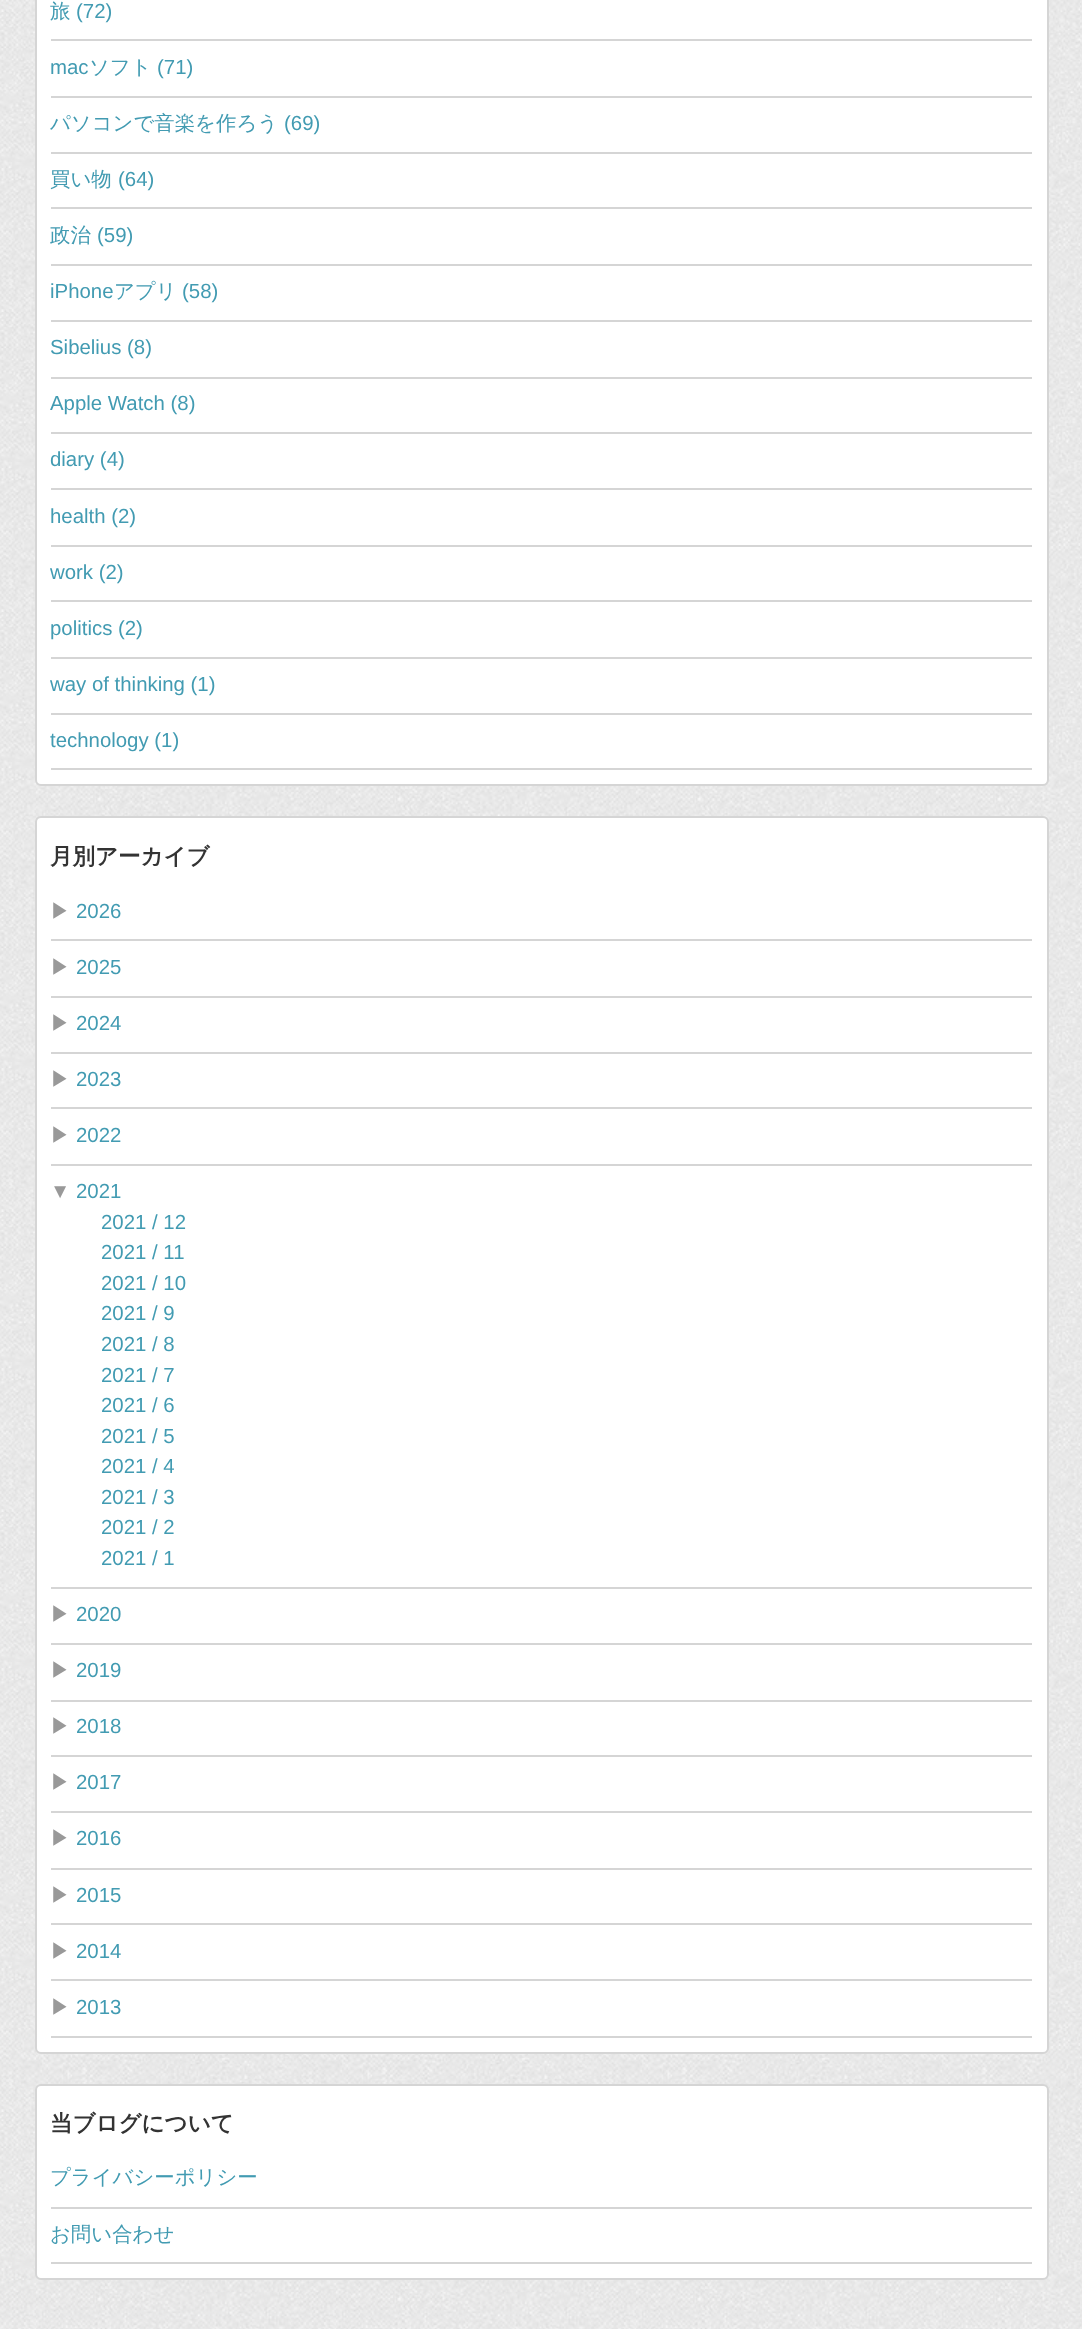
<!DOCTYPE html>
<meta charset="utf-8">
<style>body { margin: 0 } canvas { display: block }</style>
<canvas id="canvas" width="1082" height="2329"></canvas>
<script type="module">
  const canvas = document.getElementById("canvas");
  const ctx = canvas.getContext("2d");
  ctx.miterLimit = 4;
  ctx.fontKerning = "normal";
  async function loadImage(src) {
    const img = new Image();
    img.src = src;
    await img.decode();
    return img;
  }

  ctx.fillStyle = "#ffffff";
  ctx.fillRect(0, 0, 1082, 2329);
  ctx.drawImage(await loadImage("img1.png"), 0, 0, 1082, 2329);
  ctx.beginPath();
  ctx.roundRect(36, -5, 1011, 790, 5);
  ctx.fill();
  ctx.beginPath();
  ctx.roundRect(36, -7, 1012, 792, 5);
  ctx.strokeStyle = "#d5d5d5";
  ctx.lineWidth = 2;
  ctx.stroke();
  ctx.fillStyle = "#d5d5d5";
  ctx.fillRect(51, 39, 981, 2);
  ctx.font = "500 20.4px WenQuanYi Zen Hei";
  ctx.fillStyle = "#429bb2";
  ctx.fillText("旅", 50, 18);
  ctx.font = "20.4px Liberation Sans";
  ctx.fillText("(72)", 76, 18);
  ctx.fillStyle = "#d5d5d5";
  ctx.fillRect(51, 96, 981, 2);
  ctx.fillStyle = "#429bb2";
  ctx.fillText("mac", 50, 74);
  ctx.font = "500 20.4px WenQuanYi Zen Hei";
  ctx.fillText("ソフト", 89, 74);
  ctx.font = "20.4px Liberation Sans";
  ctx.fillText("(71)", 157, 74);
  ctx.fillStyle = "#d5d5d5";
  ctx.fillRect(51, 152, 981, 2);
  ctx.font = "500 20.4px WenQuanYi Zen Hei";
  ctx.fillStyle = "#429bb2";
  ctx.fillText("パソコンで音楽を作ろう", 50, 130);
  ctx.font = "20.4px Liberation Sans";
  ctx.fillText("(69)", 284, 130);
  ctx.fillStyle = "#d5d5d5";
  ctx.fillRect(51, 207, 981, 2);
  ctx.font = "500 20.4px WenQuanYi Zen Hei";
  ctx.fillStyle = "#429bb2";
  ctx.fillText("買い物", 50, 186);
  ctx.font = "20.4px Liberation Sans";
  ctx.fillText("(64)", 118, 186);
  ctx.fillStyle = "#d5d5d5";
  ctx.fillRect(51, 264, 981, 2);
  ctx.font = "500 20.4px WenQuanYi Zen Hei";
  ctx.fillStyle = "#429bb2";
  ctx.fillText("政治", 50, 242);
  ctx.font = "20.4px Liberation Sans";
  ctx.fillText("(59)", 97, 242);
  ctx.fillStyle = "#d5d5d5";
  ctx.fillRect(51, 320, 981, 2);
  ctx.fillStyle = "#429bb2";
  ctx.fillText("iPhone", 50, 298);
  ctx.font = "500 20.4px WenQuanYi Zen Hei";
  ctx.fillText("アプリ", 114, 298);
  ctx.font = "20.4px Liberation Sans";
  ctx.fillText("(58)", 182, 298);
  ctx.fillStyle = "#d5d5d5";
  ctx.fillRect(51, 377, 981, 2);
  ctx.fillStyle = "#429bb2";
  ctx.fillText("Sibelius (8)", 50, 354);
  ctx.fillStyle = "#d5d5d5";
  ctx.fillRect(51, 432, 981, 2);
  ctx.fillStyle = "#429bb2";
  ctx.fillText("Apple Watch (8)", 50, 410);
  ctx.fillStyle = "#d5d5d5";
  ctx.fillRect(51, 488, 981, 2);
  ctx.fillStyle = "#429bb2";
  ctx.fillText("diary (4)", 50, 466);
  ctx.fillStyle = "#d5d5d5";
  ctx.fillRect(51, 545, 981, 2);
  ctx.fillStyle = "#429bb2";
  ctx.fillText("health (2)", 50, 523);
  ctx.fillStyle = "#d5d5d5";
  ctx.fillRect(51, 600, 981, 2);
  ctx.fillStyle = "#429bb2";
  ctx.fillText("work (2)", 50, 579);
  ctx.fillStyle = "#d5d5d5";
  ctx.fillRect(51, 657, 981, 2);
  ctx.fillStyle = "#429bb2";
  ctx.fillText("politics (2)", 50, 635);
  ctx.fillStyle = "#d5d5d5";
  ctx.fillRect(51, 713, 981, 2);
  ctx.fillStyle = "#429bb2";
  ctx.fillText("way of thinking (1)", 50, 691);
  ctx.fillStyle = "#d5d5d5";
  ctx.fillRect(51, 768, 981, 2);
  ctx.fillStyle = "#429bb2";
  ctx.fillText("technology (1)", 50, 747);
  ctx.fillStyle = "#ffffff";
  ctx.beginPath();
  ctx.roundRect(36, 817, 1012, 1236, 5);
  ctx.fill();
  ctx.stroke();
  ctx.font = "bold 22.5px WenQuanYi Zen Hei";
  ctx.fillStyle = "#333333";
  ctx.fillText("月別アーカイブ", 50, 864);
  ctx.fillStyle = "#d5d5d5";
  ctx.fillRect(51, 939, 981, 2);
  ctx.font = "500 20.4px WenQuanYi Zen Hei";
  ctx.fillStyle = "#999999";
  ctx.fillText("▶", 50, 918);
  ctx.font = "20.4px Liberation Sans";
  ctx.fillStyle = "#429bb2";
  ctx.fillText("2026", 76, 918);
  ctx.fillStyle = "#d5d5d5";
  ctx.fillRect(51, 996, 981, 2);
  ctx.font = "500 20.4px WenQuanYi Zen Hei";
  ctx.fillStyle = "#999999";
  ctx.fillText("▶", 50, 974);
  ctx.font = "20.4px Liberation Sans";
  ctx.fillStyle = "#429bb2";
  ctx.fillText("2025", 76, 974);
  ctx.fillStyle = "#d5d5d5";
  ctx.fillRect(51, 1052, 981, 2);
  ctx.font = "500 20.4px WenQuanYi Zen Hei";
  ctx.fillStyle = "#999999";
  ctx.fillText("▶", 50, 1030);
  ctx.font = "20.4px Liberation Sans";
  ctx.fillStyle = "#429bb2";
  ctx.fillText("2024", 76, 1030);
  ctx.fillStyle = "#d5d5d5";
  ctx.fillRect(51, 1107, 981, 2);
  ctx.font = "500 20.4px WenQuanYi Zen Hei";
  ctx.fillStyle = "#999999";
  ctx.fillText("▶", 50, 1086);
  ctx.font = "20.4px Liberation Sans";
  ctx.fillStyle = "#429bb2";
  ctx.fillText("2023", 76, 1086);
  ctx.fillStyle = "#d5d5d5";
  ctx.fillRect(51, 1164, 981, 2);
  ctx.font = "500 20.4px WenQuanYi Zen Hei";
  ctx.fillStyle = "#999999";
  ctx.fillText("▶", 50, 1142);
  ctx.font = "20.4px Liberation Sans";
  ctx.fillStyle = "#429bb2";
  ctx.fillText("2022", 76, 1142);
  ctx.fillStyle = "#d5d5d5";
  ctx.fillRect(51, 1587, 981, 2);
  ctx.fillStyle = "#999999";
  ctx.fillText("▼", 50, 1198);
  ctx.fillStyle = "#429bb2";
  ctx.fillText("2021", 76, 1198);
  ctx.fillText("2021 / 12", 101, 1229);
  ctx.fillText("2021 / 11", 101, 1259);
  ctx.fillText("2021 / 10", 101, 1290);
  ctx.fillText("2021 / 9", 101, 1320);
  ctx.fillText("2021 / 8", 101, 1351);
  ctx.fillText("2021 / 7", 101, 1382);
  ctx.fillText("2021 / 6", 101, 1412);
  ctx.fillText("2021 / 5", 101, 1443);
  ctx.fillText("2021 / 4", 101, 1473);
  ctx.fillText("2021 / 3", 101, 1504);
  ctx.fillText("2021 / 2", 101, 1534);
  ctx.fillText("2021 / 1", 101, 1565);
  ctx.fillStyle = "#d5d5d5";
  ctx.fillRect(51, 1643, 981, 2);
  ctx.font = "500 20.4px WenQuanYi Zen Hei";
  ctx.fillStyle = "#999999";
  ctx.fillText("▶", 50, 1621);
  ctx.font = "20.4px Liberation Sans";
  ctx.fillStyle = "#429bb2";
  ctx.fillText("2020", 76, 1621);
  ctx.fillStyle = "#d5d5d5";
  ctx.fillRect(51, 1700, 981, 2);
  ctx.font = "500 20.4px WenQuanYi Zen Hei";
  ctx.fillStyle = "#999999";
  ctx.fillText("▶", 50, 1677);
  ctx.font = "20.4px Liberation Sans";
  ctx.fillStyle = "#429bb2";
  ctx.fillText("2019", 76, 1677);
  ctx.fillStyle = "#d5d5d5";
  ctx.fillRect(51, 1755, 981, 2);
  ctx.font = "500 20.4px WenQuanYi Zen Hei";
  ctx.fillStyle = "#999999";
  ctx.fillText("▶", 50, 1733);
  ctx.font = "20.4px Liberation Sans";
  ctx.fillStyle = "#429bb2";
  ctx.fillText("2018", 76, 1733);
  ctx.fillStyle = "#d5d5d5";
  ctx.fillRect(51, 1811, 981, 2);
  ctx.font = "500 20.4px WenQuanYi Zen Hei";
  ctx.fillStyle = "#999999";
  ctx.fillText("▶", 50, 1789);
  ctx.font = "20.4px Liberation Sans";
  ctx.fillStyle = "#429bb2";
  ctx.fillText("2017", 76, 1789);
  ctx.fillStyle = "#d5d5d5";
  ctx.fillRect(51, 1868, 981, 2);
  ctx.font = "500 20.4px WenQuanYi Zen Hei";
  ctx.fillStyle = "#999999";
  ctx.fillText("▶", 50, 1845);
  ctx.font = "20.4px Liberation Sans";
  ctx.fillStyle = "#429bb2";
  ctx.fillText("2016", 76, 1845);
  ctx.fillStyle = "#d5d5d5";
  ctx.fillRect(51, 1923, 981, 2);
  ctx.font = "500 20.4px WenQuanYi Zen Hei";
  ctx.fillStyle = "#999999";
  ctx.fillText("▶", 50, 1902);
  ctx.font = "20.4px Liberation Sans";
  ctx.fillStyle = "#429bb2";
  ctx.fillText("2015", 76, 1902);
  ctx.fillStyle = "#d5d5d5";
  ctx.fillRect(51, 1979, 981, 2);
  ctx.font = "500 20.4px WenQuanYi Zen Hei";
  ctx.fillStyle = "#999999";
  ctx.fillText("▶", 50, 1958);
  ctx.font = "20.4px Liberation Sans";
  ctx.fillStyle = "#429bb2";
  ctx.fillText("2014", 76, 1958);
  ctx.fillStyle = "#d5d5d5";
  ctx.fillRect(51, 2036, 981, 2);
  ctx.font = "500 20.4px WenQuanYi Zen Hei";
  ctx.fillStyle = "#999999";
  ctx.fillText("▶", 50, 2014);
  ctx.font = "20.4px Liberation Sans";
  ctx.fillStyle = "#429bb2";
  ctx.fillText("2013", 76, 2014);
  ctx.fillStyle = "#ffffff";
  ctx.beginPath();
  ctx.roundRect(36, 2085, 1012, 194, 5);
  ctx.fill();
  ctx.stroke();
  ctx.font = "bold 22.5px WenQuanYi Zen Hei";
  ctx.fillStyle = "#333333";
  ctx.fillText("当ブログについて", 50, 2131);
  ctx.fillStyle = "#d5d5d5";
  ctx.fillRect(51, 2207, 981, 2);
  ctx.font = "500 20.4px WenQuanYi Zen Hei";
  ctx.fillStyle = "#429bb2";
  ctx.fillText("プライバシーポリシー", 50, 2184);
  ctx.fillStyle = "#d5d5d5";
  ctx.fillRect(51, 2262, 981, 2);
  ctx.fillStyle = "#429bb2";
  ctx.fillText("お問い合わせ", 50, 2241);
</script>
